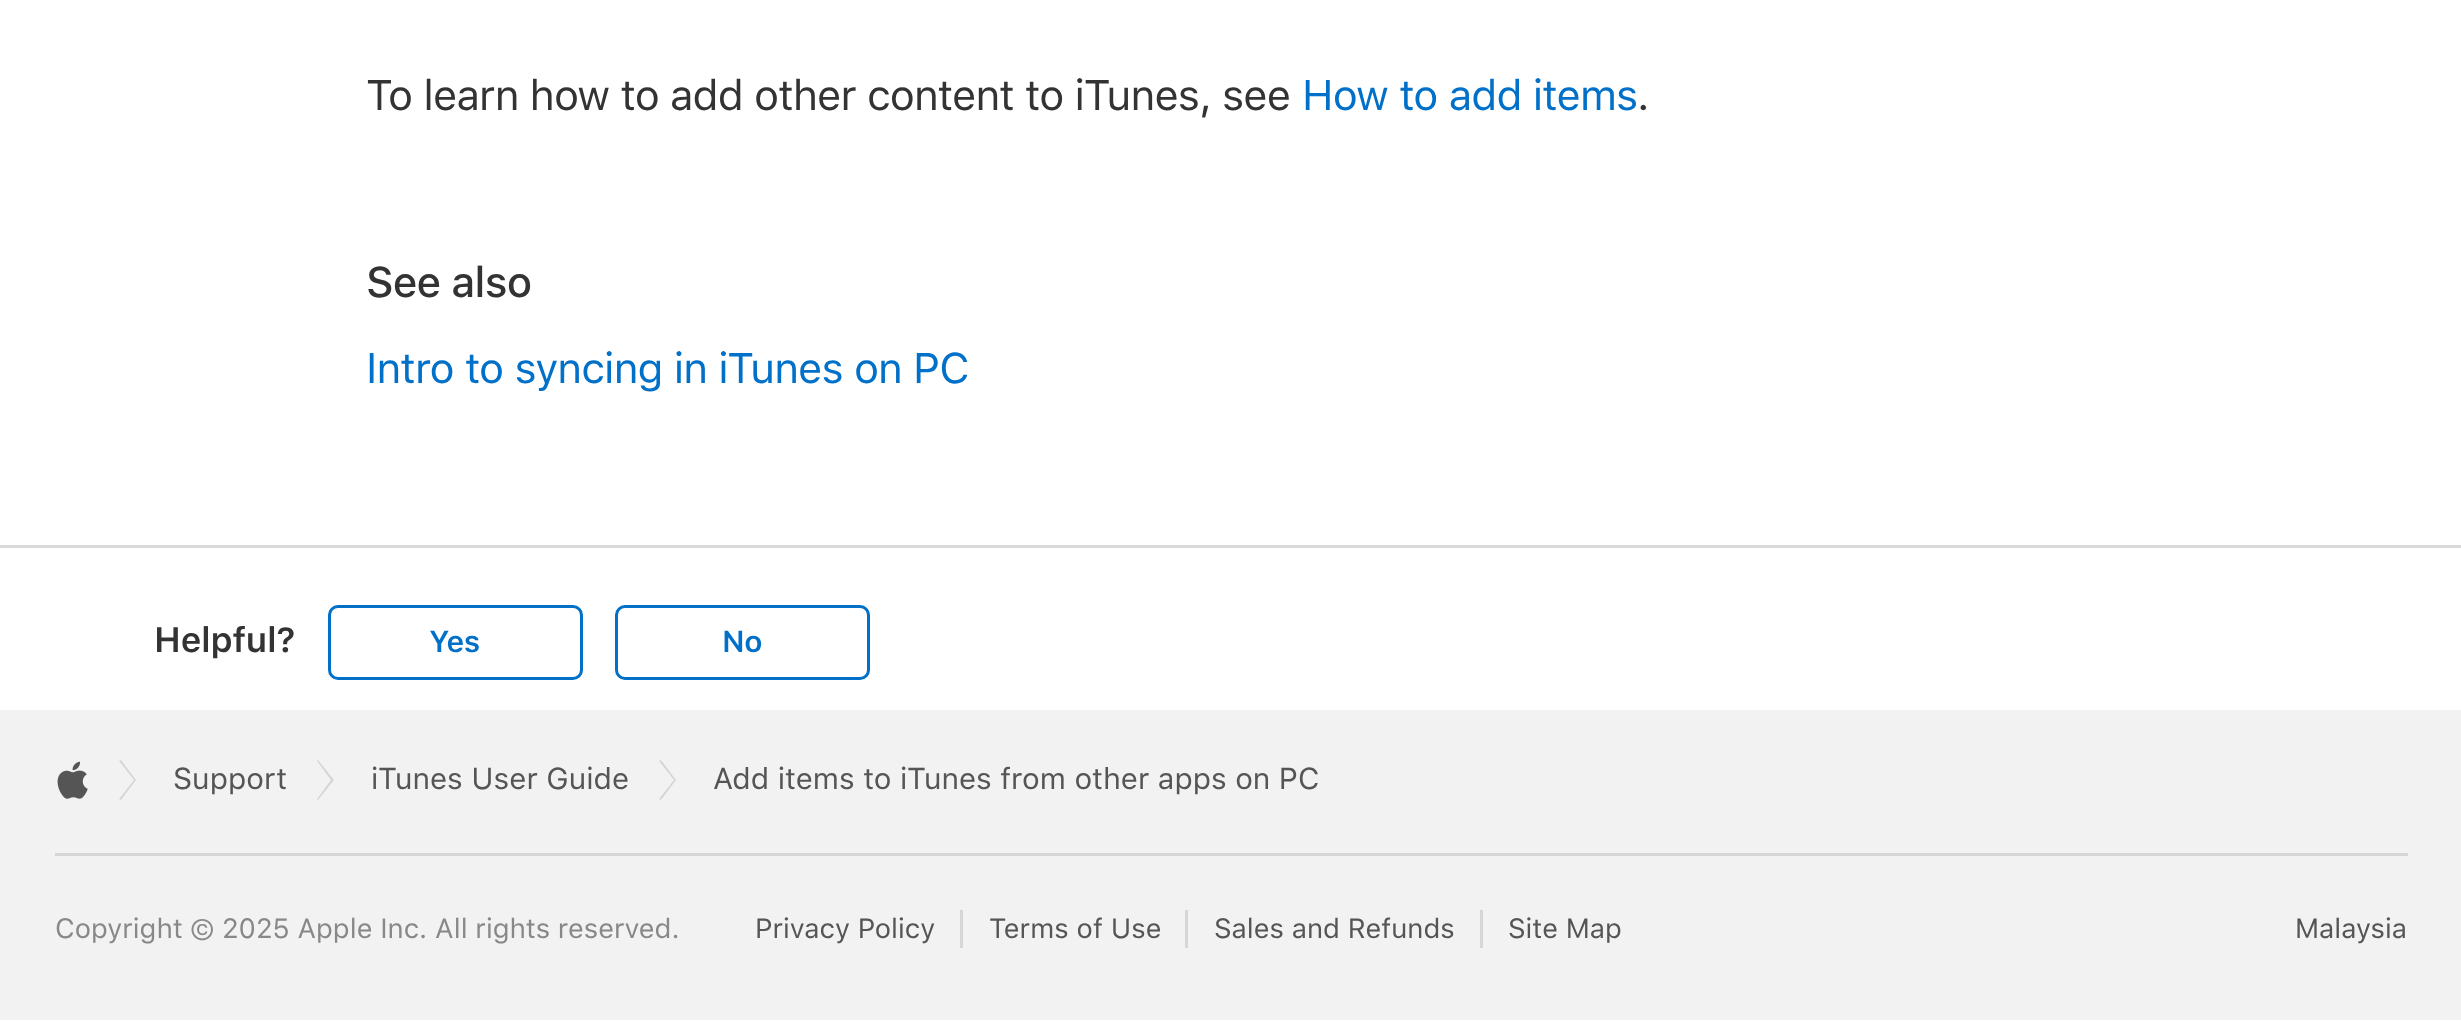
<!DOCTYPE html>
<meta charset="utf-8">
<style>body { margin: 0 } canvas { display: block }</style>
<canvas id="canvas" width="2461" height="1021"></canvas>
<script type="module">
  const canvas = document.getElementById("canvas");
  const ctx = canvas.getContext("2d");
  ctx.miterLimit = 4;
  ctx.fontKerning = "normal";
  async function loadImage(src) {
    const img = new Image();
    img.src = src;
    await img.decode();
    return img;
  }

  ctx.fillStyle = "#ffffff";
  ctx.fillRect(0, 0, 2461, 1021);
  ctx.letterSpacing = "-0.9px";
  ctx.font = "42.5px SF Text";
  ctx.fillStyle = "#333333";
  ctx.fillText("To learn how to add other content to iTunes, see", 366, 110);
  ctx.fillStyle = "#0070c9";
  ctx.fillText("How to add items", 1302, 110);
  ctx.fillStyle = "#333333";
  ctx.fillText(".", 1637, 110);
  ctx.font = "500 42.5px SF Text";
  ctx.fillText("See also", 366, 297);
  ctx.font = "42.5px SF Text";
  ctx.fillStyle = "#0070c9";
  ctx.fillText("Intro to syncing in iTunes on PC", 366, 383);
  ctx.fillStyle = "#d9d9d9";
  ctx.fillRect(0, 545, 2461, 3);
  ctx.letterSpacing = "-0.25px";
  ctx.font = "600 35px SF Text";
  ctx.fillStyle = "#333333";
  ctx.fillText("Helpful?", 154, 652);
  ctx.beginPath();
  ctx.roundRect(329.5, 606.5, 252, 72, 8.5);
  ctx.strokeStyle = "#0070c9";
  ctx.lineWidth = 3;
  ctx.stroke();
  ctx.letterSpacing = "-0.5px";
  ctx.font = "600 30px SF Text";
  ctx.fillStyle = "#0070c9";
  ctx.fillText("Yes", 429, 652);
  ctx.beginPath();
  ctx.roundRect(616.5, 606.5, 252, 72, 8.5);
  ctx.stroke();
  ctx.fillText("No", 722, 652);
  ctx.fillStyle = "#f2f2f2";
  ctx.fillRect(0, 710, 2461, 310);
  ctx.drawImage(await loadImage("img1.png"), 57, 761, 31, 38);
  ctx.fillStyle = "#d6d6d6";
  ctx.beginPath();
  ctx.moveTo(121, 760);
  ctx.lineTo(136, 780);
  ctx.lineTo(121, 800);
  ctx.lineTo(119, 799);
  ctx.lineTo(134, 780);
  ctx.lineTo(119, 761);
  ctx.closePath();
  ctx.fill();
  ctx.letterSpacing = "0px";
  ctx.font = "30px SF Text";
  ctx.fillStyle = "#555555";
  ctx.fillText("Support", 173, 789);
  ctx.fillStyle = "#d6d6d6";
  ctx.beginPath();
  ctx.moveTo(318, 760);
  ctx.lineTo(334, 780);
  ctx.lineTo(318, 800);
  ctx.lineTo(317, 799);
  ctx.lineTo(331, 780);
  ctx.lineTo(317, 761);
  ctx.closePath();
  ctx.fill();
  ctx.fillStyle = "#555555";
  ctx.fillText("iTunes User Guide", 371, 789);
  ctx.fillStyle = "#d6d6d6";
  ctx.beginPath();
  ctx.moveTo(661, 760);
  ctx.lineTo(676, 780);
  ctx.lineTo(661, 800);
  ctx.lineTo(659, 799);
  ctx.lineTo(674, 780);
  ctx.lineTo(659, 761);
  ctx.closePath();
  ctx.fill();
  ctx.fillStyle = "#555555";
  ctx.fillText("Add items to iTunes from other apps on PC", 713, 789);
  ctx.fillStyle = "#d6d6d6";
  ctx.fillRect(55, 853, 2353, 3);
  ctx.font = "27.6px SF Text";
  ctx.fillStyle = "#888888";
  ctx.fillText("Copyright © 2025 Apple Inc. All rights reserved.", 55, 938);
  ctx.fillStyle = "#d6d6d6";
  ctx.fillRect(960, 910, 3, 38);
  ctx.fillStyle = "#555555";
  ctx.fillText("Privacy Policy", 755, 938);
  ctx.fillStyle = "#d6d6d6";
  ctx.fillRect(1185, 910, 3, 38);
  ctx.fillStyle = "#555555";
  ctx.fillText("Terms of Use", 989, 938);
  ctx.fillStyle = "#d6d6d6";
  ctx.fillRect(1480, 910, 3, 38);
  ctx.fillStyle = "#555555";
  ctx.fillText("Sales and Refunds", 1214, 938);
  ctx.fillText("Site Map", 1508, 938);
  ctx.fillText("Malaysia", 2295, 938);
</script>
